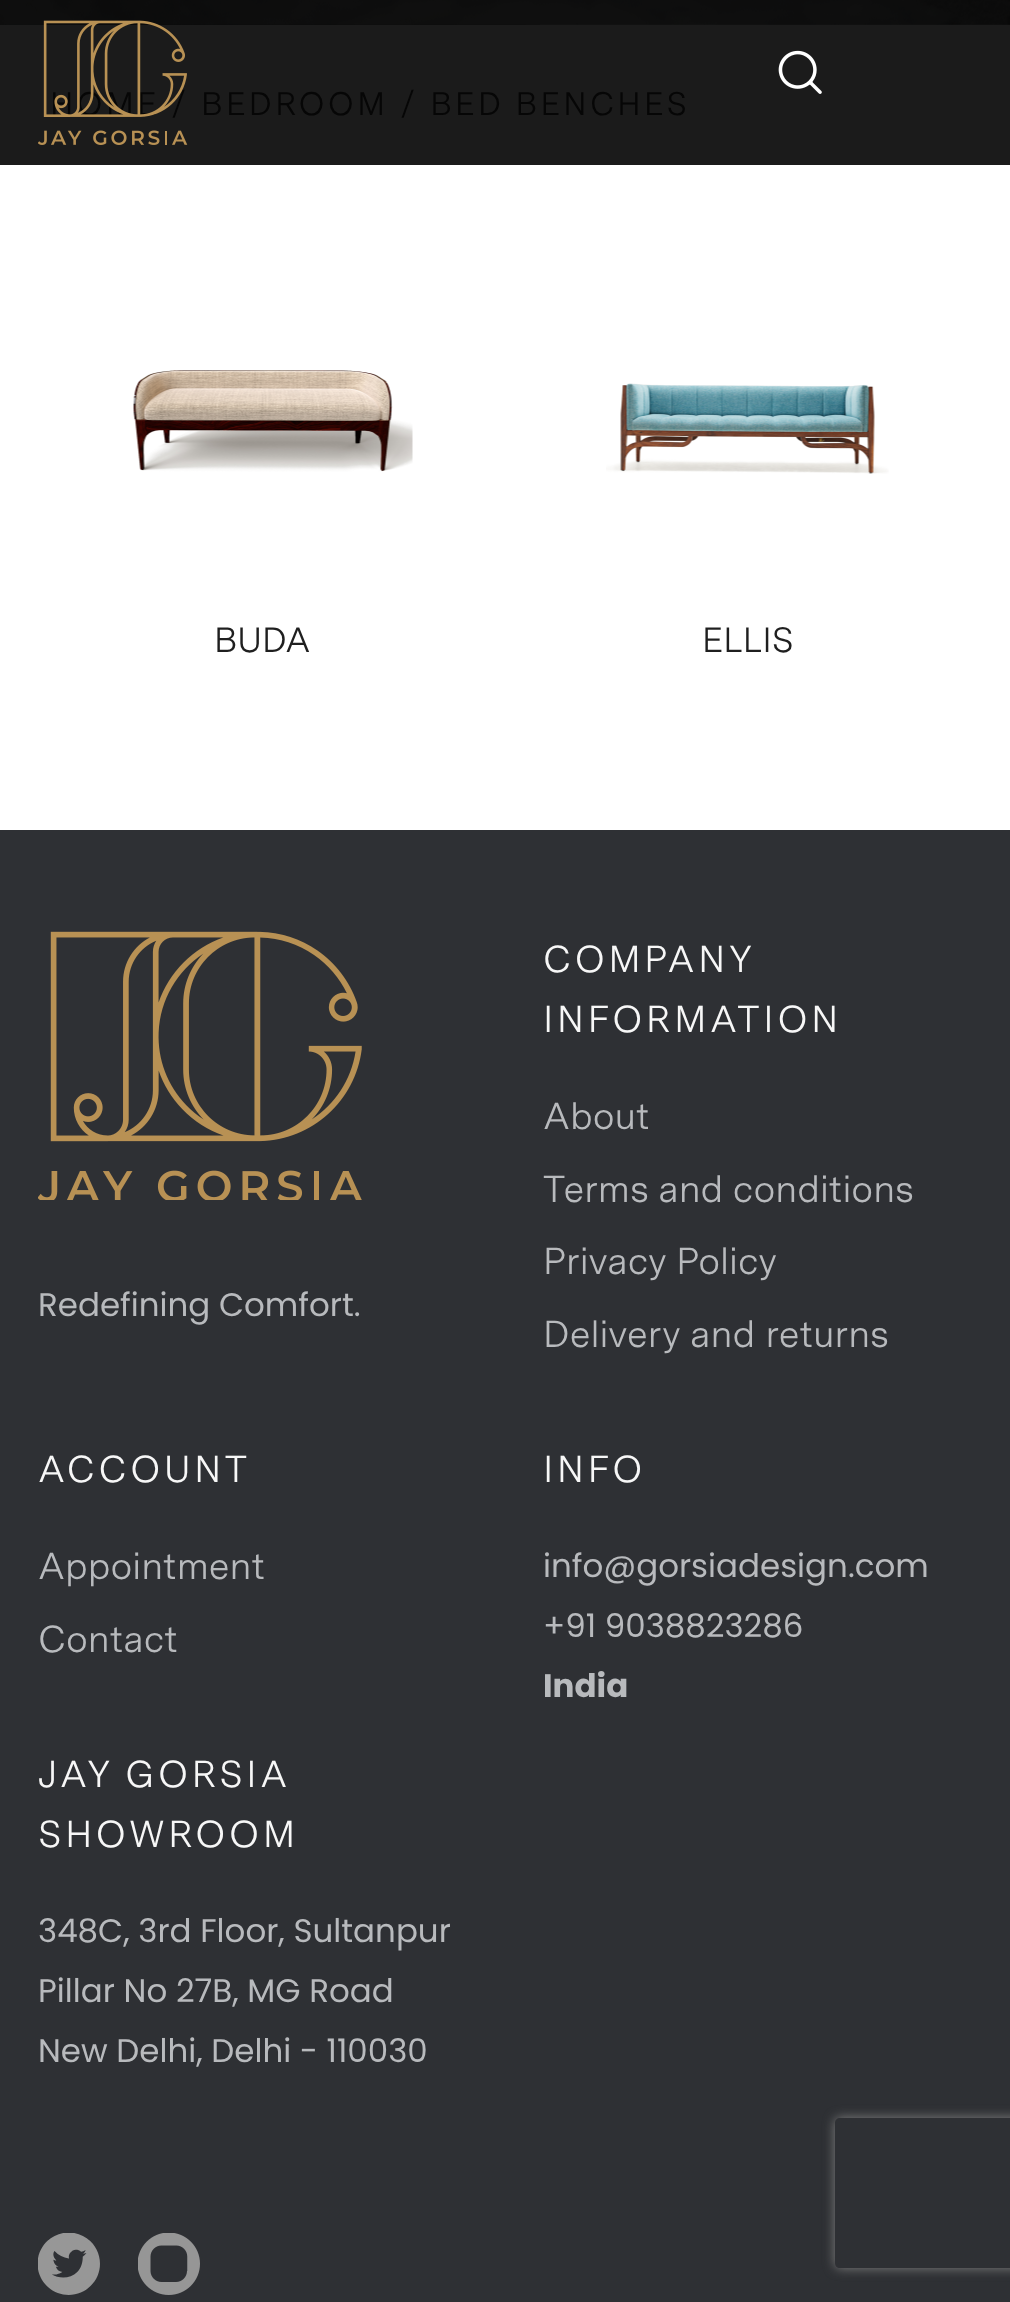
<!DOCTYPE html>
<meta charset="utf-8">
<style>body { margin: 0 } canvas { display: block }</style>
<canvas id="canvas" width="1010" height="2302"></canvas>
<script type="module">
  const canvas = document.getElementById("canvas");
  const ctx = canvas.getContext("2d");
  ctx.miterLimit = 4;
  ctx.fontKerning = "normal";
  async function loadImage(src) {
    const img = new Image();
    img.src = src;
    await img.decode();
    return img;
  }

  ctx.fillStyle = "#ffffff";
  ctx.fillRect(0, 0, 1010, 2302);
  ctx.fillStyle = "#1b1b1b";
  ctx.fillRect(0, 24, 1010, 141);
  ctx.drawImage(await loadImage("img2.png"), 0, 24, 540, 1);
  ctx.drawImage(await loadImage("img1.png"), 0, 0, 1010, 25);
  ctx.letterSpacing = "3.25px";
  ctx.font = "32.5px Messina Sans";
  ctx.fillStyle = "#060606";
  ctx.fillText("HOME", 50, 115);
  ctx.fillText("/", 172, 115);
  ctx.drawImage(await loadImage("img3.png"), 38, 20, 150, 125);
  ctx.drawImage(await loadImage("img4.png"), 778, 50, 44, 44);
  ctx.fillText("BEDROOM", 201, 115);
  ctx.fillText("/ BED BENCHES", 401, 115);
  ctx.drawImage(await loadImage("img5.png"), 133, 370, 280, 102);
  ctx.letterSpacing = "0px";
  ctx.font = "35px Messina Sans";
  ctx.fillStyle = "#1f1f1f";
  ctx.fillText("BUDA", 214, 652);
  ctx.drawImage(await loadImage("img6.png"), 606, 383, 283, 91);
  ctx.fillText("ELLIS", 702, 652);
  ctx.fillStyle = "#2e3034";
  ctx.fillRect(0, 830, 1010, 1472);
  ctx.drawImage(await loadImage("img7.png"), 38, 931, 324, 269);
  ctx.font = "32.5px Poppins";
  ctx.fillStyle = "#b8babd";
  ctx.fillText("Redefining Comfort.", 38, 1316);
  ctx.letterSpacing = "3.75px";
  ctx.font = "37.5px Messina Sans";
  ctx.fillStyle = "#f7f7f7";
  ctx.fillText("COMPANY", 543, 972);
  ctx.fillText("INFORMATION", 543, 1032);
  ctx.letterSpacing = "0px";
  ctx.fillStyle = "#b8babd";
  ctx.fillText("About", 543, 1129);
  ctx.fillText("Terms and conditions", 543, 1202);
  ctx.fillText("Privacy Policy", 543, 1274);
  ctx.fillText("Delivery and returns", 543, 1347);
  ctx.letterSpacing = "3.75px";
  ctx.fillStyle = "#f7f7f7";
  ctx.fillText("ACCOUNT", 38, 1482);
  ctx.letterSpacing = "0px";
  ctx.fillStyle = "#b8babd";
  ctx.fillText("Appointment", 38, 1579);
  ctx.fillText("Contact", 38, 1652);
  ctx.letterSpacing = "3.75px";
  ctx.fillStyle = "#f7f7f7";
  ctx.fillText("INFO", 543, 1482);
  ctx.letterSpacing = "0px";
  ctx.font = "32.5px Poppins";
  ctx.fillStyle = "#b8babd";
  ctx.fillText("info@gorsiadesign.com", 543, 1577);
  ctx.fillText("+91 9038823286", 543, 1637);
  ctx.font = "bold 32.5px Poppins";
  ctx.fillText("India", 543, 1697);
  ctx.letterSpacing = "3.75px";
  ctx.wordSpacing = "-1px";
  ctx.font = "37.5px Messina Sans";
  ctx.fillStyle = "#f7f7f7";
  ctx.fillText("JAY GORSIA", 38, 1787);
  ctx.wordSpacing = "0px";
  ctx.fillText("SHOWROOM", 38, 1847);
  ctx.letterSpacing = "0px";
  ctx.font = "32.5px Poppins";
  ctx.fillStyle = "#b8babd";
  ctx.fillText("348C, 3rd Floor, Sultanpur", 38, 1942);
  ctx.fillText("Pillar No 27B, MG Road", 38, 2002);
  ctx.fillText("New Delhi, Delhi - 110030", 38, 2062);
  ctx.drawImage(await loadImage("img8.png"), 38, 2233, 62, 62);
  ctx.drawImage(await loadImage("img9.png"), 138, 2233, 62, 62);
  ctx.save();
  ctx.beginPath();
  ctx.moveTo(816, 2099);
  ctx.lineTo(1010, 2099);
  ctx.lineTo(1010, 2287);
  ctx.lineTo(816, 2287);
  ctx.closePath();
  ctx.moveTo(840, 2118);
  ctx.lineTo(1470, 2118);
  ctx.bezierCurveTo(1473, 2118, 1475, 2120, 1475, 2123);
  ctx.lineTo(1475, 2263);
  ctx.bezierCurveTo(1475, 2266, 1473, 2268, 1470, 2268);
  ctx.lineTo(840, 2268);
  ctx.bezierCurveTo(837, 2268, 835, 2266, 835, 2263);
  ctx.lineTo(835, 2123);
  ctx.bezierCurveTo(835, 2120, 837, 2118, 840, 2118);
  ctx.closePath();
  ctx.clip("evenodd");
  ctx.fillStyle = "#808080";
  ctx.filter = "blur(6px)";
  ctx.beginPath();
  ctx.roundRect(835, 2118, 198, 150, 5);
  ctx.fill();
  ctx.filter = "none";
  ctx.restore();
</script>
